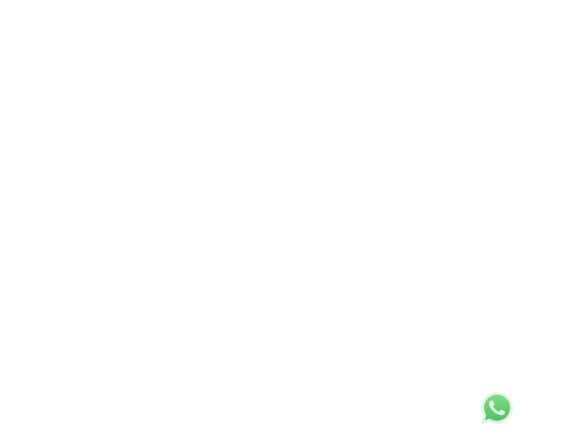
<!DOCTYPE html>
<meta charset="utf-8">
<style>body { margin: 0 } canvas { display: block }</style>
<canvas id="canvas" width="576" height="436"></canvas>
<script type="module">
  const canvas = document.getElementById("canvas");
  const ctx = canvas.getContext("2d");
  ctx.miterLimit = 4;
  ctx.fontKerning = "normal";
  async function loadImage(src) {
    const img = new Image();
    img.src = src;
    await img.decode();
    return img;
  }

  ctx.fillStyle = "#ffffff";
  ctx.fillRect(0, 0, 576, 436);
  ctx.drawImage(await loadImage("img1.png"), 481, 392, 32, 32);
</script>
